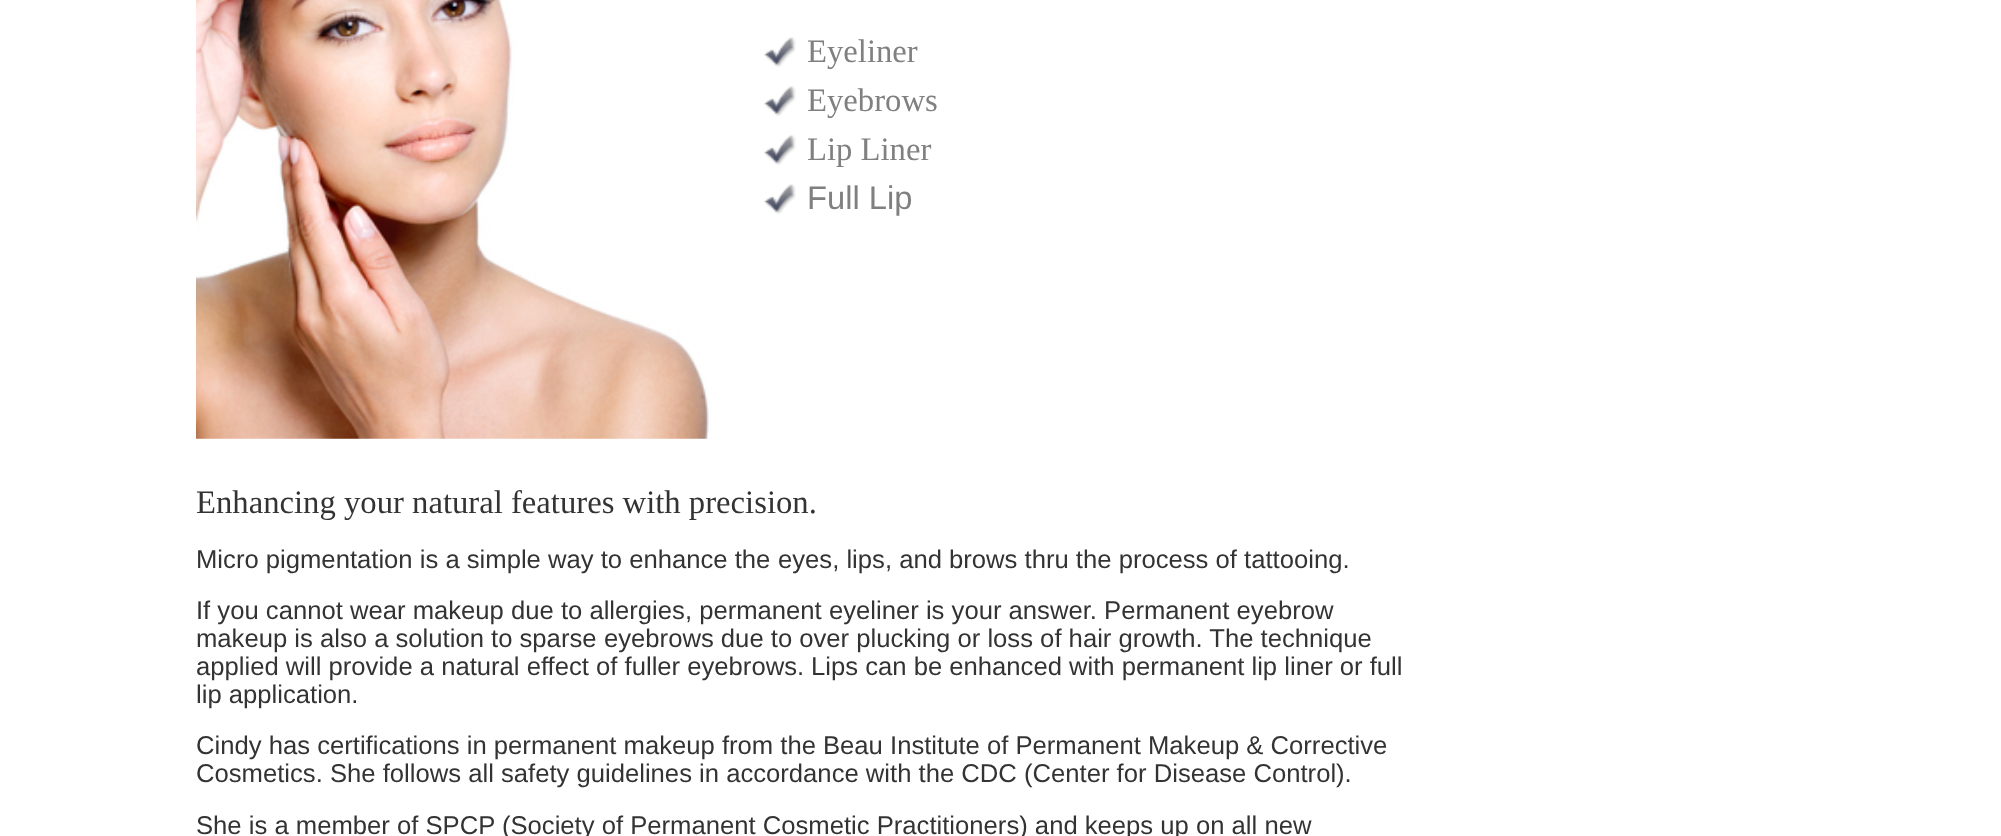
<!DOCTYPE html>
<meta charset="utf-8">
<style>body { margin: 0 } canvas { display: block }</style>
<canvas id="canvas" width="2001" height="836"></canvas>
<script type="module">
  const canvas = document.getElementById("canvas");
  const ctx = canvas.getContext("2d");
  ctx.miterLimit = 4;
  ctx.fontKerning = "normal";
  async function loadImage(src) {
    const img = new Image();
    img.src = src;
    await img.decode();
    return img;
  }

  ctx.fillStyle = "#ffffff";
  ctx.fillRect(0, 0, 2001, 836);
  ctx.drawImage(await loadImage("img1.png"), 196, 0, 513, 439);
  ctx.drawImage(await loadImage("img2.png"), 764, 36, 32, 31);
  ctx.font = "32.7px Liberation Serif";
  ctx.fillStyle = "#808080";
  ctx.fillText("Eyeliner", 807, 62);
  ctx.drawImage(await loadImage("img2.png"), 764, 85, 32, 31);
  ctx.fillText("Eyebrows", 807, 111);
  ctx.drawImage(await loadImage("img2.png"), 764, 134, 32, 31);
  ctx.fillText("Lip Liner", 807, 160);
  ctx.drawImage(await loadImage("img2.png"), 764, 183, 32, 31);
  ctx.font = "32.7px Liberation Sans";
  ctx.fillText("Full Lip", 807, 209);
  ctx.font = "32.7px Liberation Serif";
  ctx.fillStyle = "#333333";
  ctx.fillText("Enhancing your natural features with precision.", 196, 513);
  ctx.font = "25.65px Liberation Sans";
  ctx.fillText("Micro pigmentation is a simple way to enhance the", 196, 568);
  ctx.fillText("eyes, lips, and brows thru the process of tattooing.", 778, 568);
  ctx.fillText("If you cannot wear makeup due to allergies, permanent", 196, 619);
  ctx.fillText("eyeliner is your answer. Permanent eyebrow", 829, 619);
  ctx.fillText("makeup is also a solution to sparse", 196, 647);
  ctx.fillText("eyebrows due to over plucking or loss of hair growth. The technique", 604, 647);
  ctx.fillText("applied will provide a natural effect of fuller eyebrows.", 196, 675);
  ctx.fillText("Lips can be enhanced with permanent lip liner or full", 811, 675);
  ctx.fillText("lip application.", 196, 703);
  ctx.fillText("Cindy has certifications in permanent makeup from the", 196, 754);
  ctx.fillText("Beau Institute of Permanent Makeup & Corrective", 823, 754);
  ctx.fillText("Cosmetics. She follows all safety guidelines in accordance with the CDC (Center for Disease Control).", 196, 782);
  ctx.fillText("She is a member of SPCP (Society of Permanent Cosmetic Practitioners) and keeps up on all new", 196, 834);
</script>
